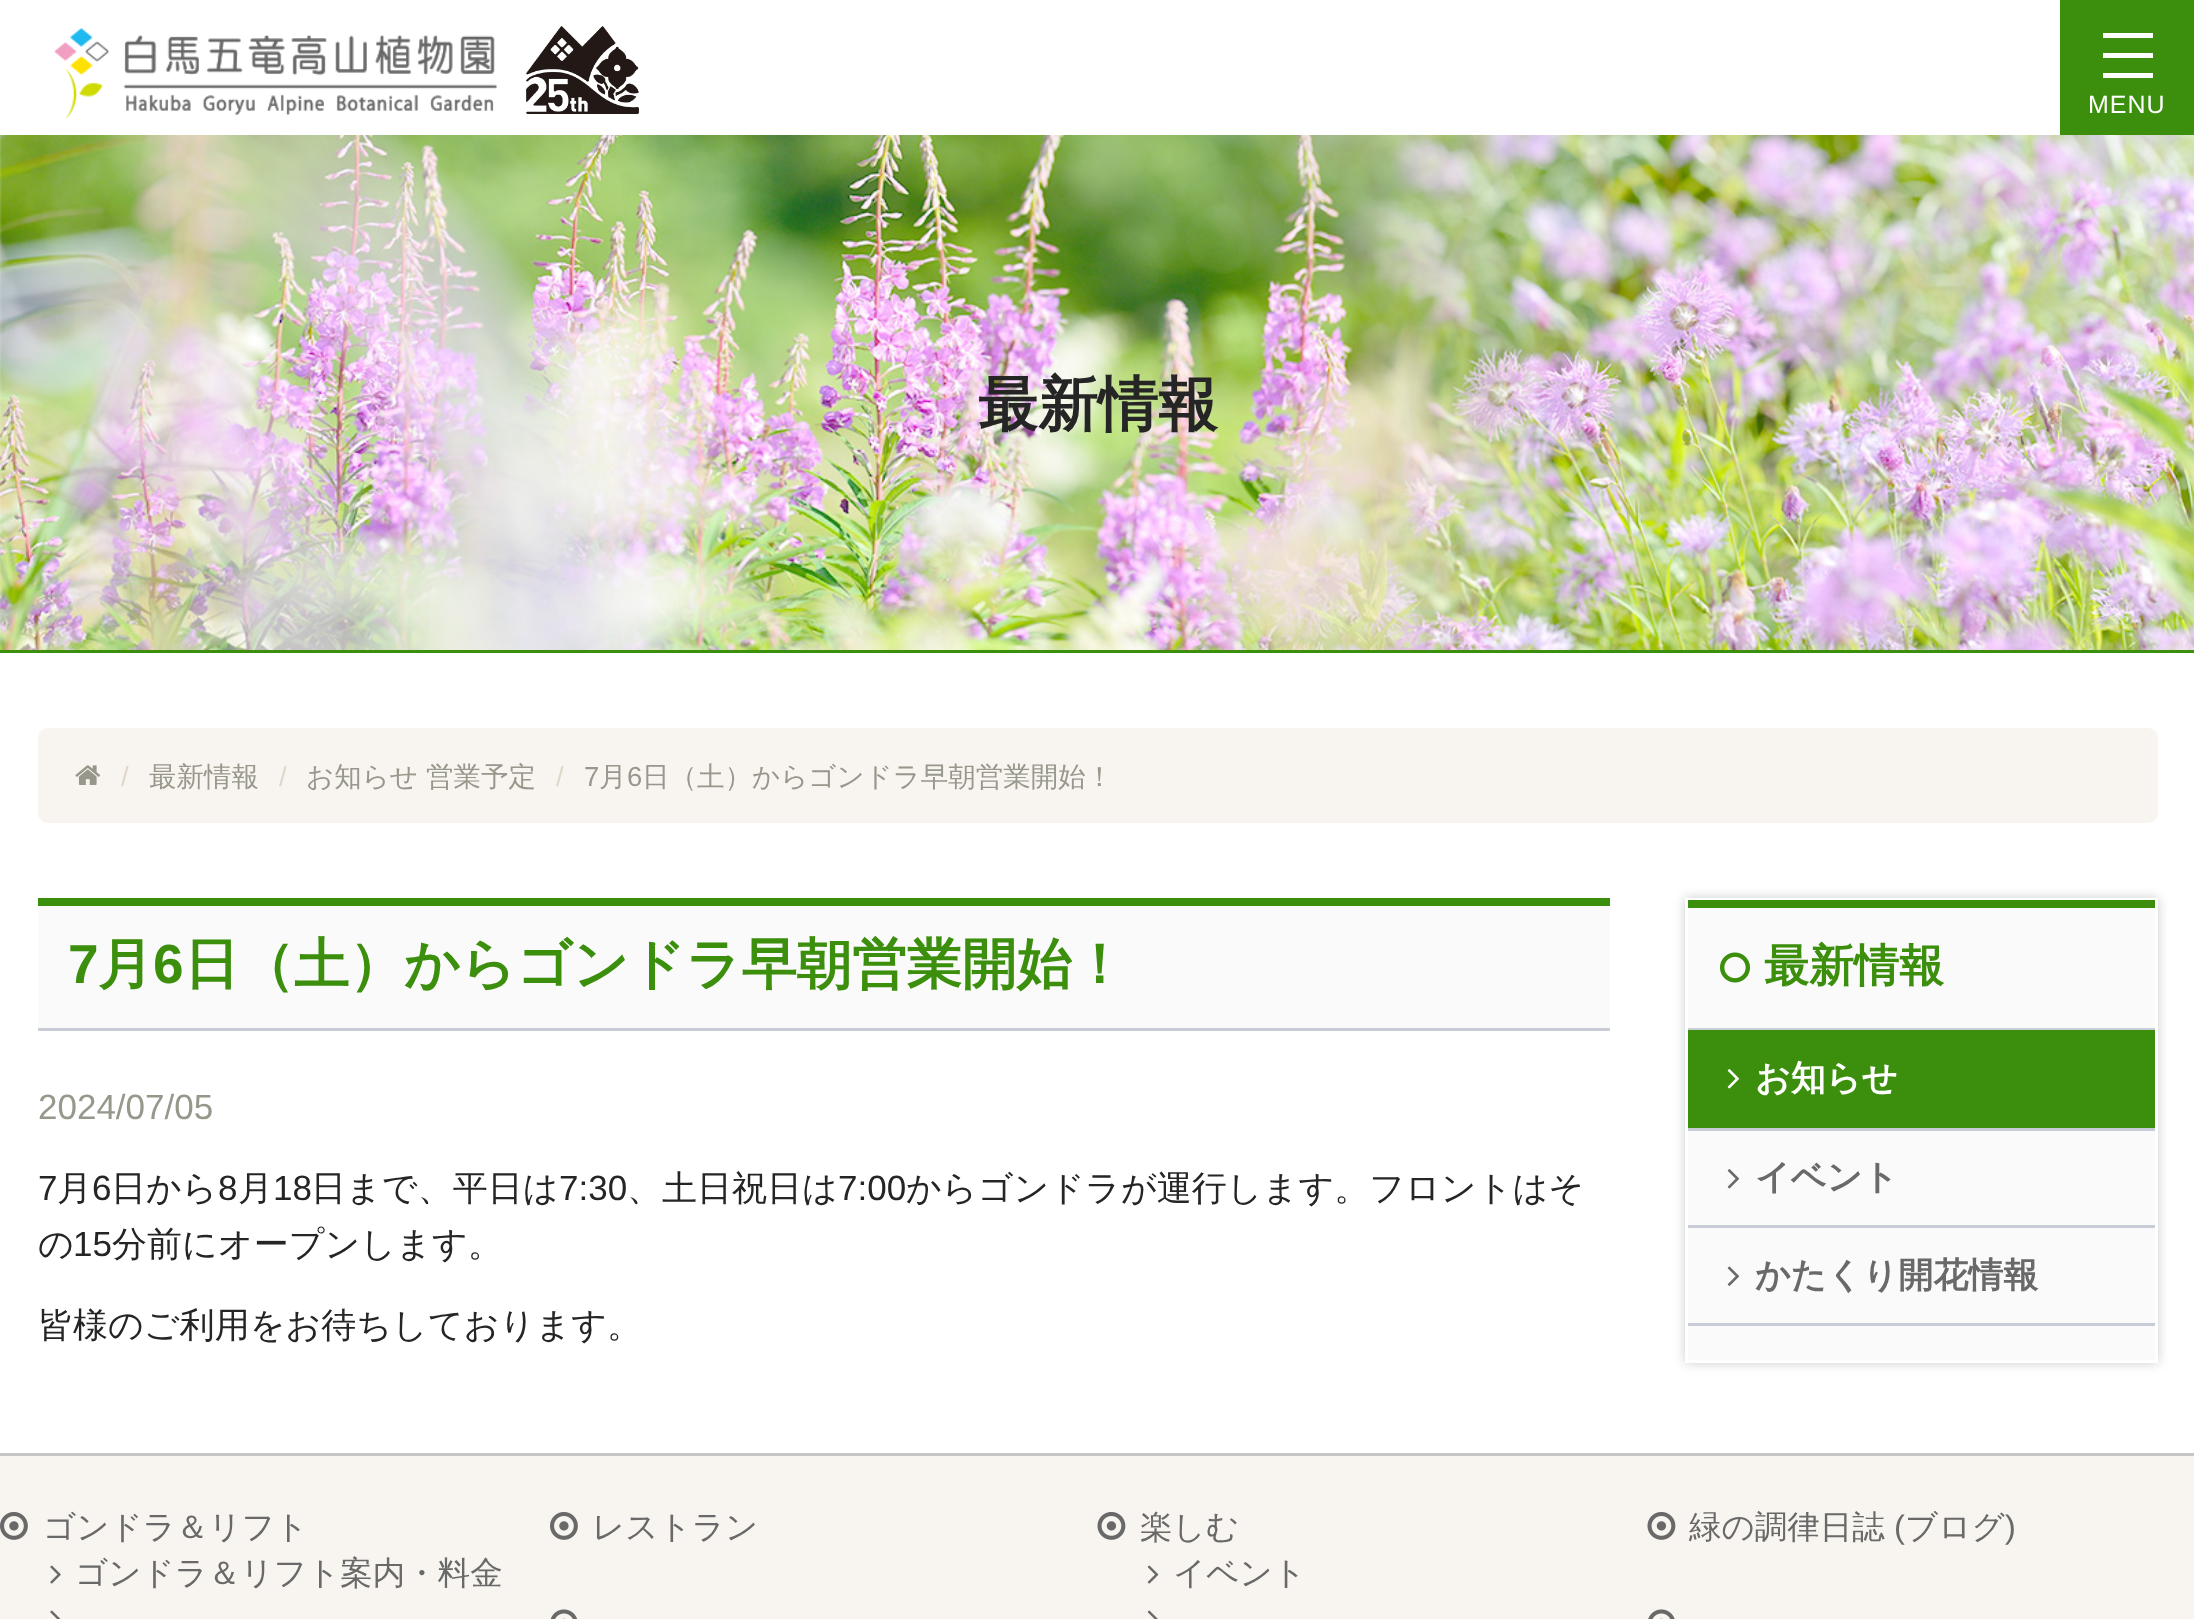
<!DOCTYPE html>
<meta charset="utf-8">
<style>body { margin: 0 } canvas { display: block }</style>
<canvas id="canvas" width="2194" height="1619"></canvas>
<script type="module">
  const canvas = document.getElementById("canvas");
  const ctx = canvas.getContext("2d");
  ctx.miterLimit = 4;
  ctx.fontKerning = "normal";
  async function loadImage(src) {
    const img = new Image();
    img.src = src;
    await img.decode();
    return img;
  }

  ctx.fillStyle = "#ffffff";
  ctx.fillRect(0, 0, 2194, 1619);
  ctx.drawImage(await loadImage("img1.png"), 54, 28, 443, 91);
  ctx.drawImage(await loadImage("img2.png"), 526, 26, 113, 88);
  ctx.fillStyle = "#3b8f0d";
  ctx.fillRect(2060, 0, 134, 135);
  ctx.fillStyle = "#ffffff";
  ctx.fillRect(2103, 33, 50, 5);
  ctx.fillRect(2103, 53, 50, 5);
  ctx.fillRect(2103, 73, 50, 5);
  ctx.letterSpacing = "1px";
  ctx.font = "25px Liberation Sans";
  ctx.fillText("MENU", 2088, 113);
  ctx.drawImage(await loadImage("img3.png"), 0, 135, 2194, 515);
  ctx.fillStyle = "#3b8f0d";
  ctx.fillRect(0, 650, 2194, 3);
  ctx.letterSpacing = "0px";
  ctx.font = "bold 60px WenQuanYi Zen Hei";
  ctx.fillStyle = "#252525";
  ctx.fillText("最新情報", 978, 425);
  ctx.fillStyle = "#f8f5f0";
  ctx.beginPath();
  ctx.roundRect(38, 728, 2120, 95, 10);
  ctx.fill();
  ctx.drawImage(await loadImage("img4.png"), 75, 765, 26, 20);
  ctx.font = "27.5px Liberation Sans";
  ctx.fillStyle = "#dfd7ca";
  ctx.fillText("/", 121, 786);
  ctx.font = "500 27.5px WenQuanYi Zen Hei";
  ctx.fillStyle = "#98978b";
  ctx.fillText("最新情報", 149, 786);
  ctx.font = "27.5px Liberation Sans";
  ctx.fillStyle = "#dfd7ca";
  ctx.fillText("/", 279, 786);
  ctx.font = "500 27.5px WenQuanYi Zen Hei";
  ctx.fillStyle = "#98978b";
  ctx.fillText("お知らせ", 306, 786);
  ctx.fillText("営業予定", 426, 786);
  ctx.font = "27.5px Liberation Sans";
  ctx.fillStyle = "#dfd7ca";
  ctx.fillText("/", 556, 786);
  ctx.fillStyle = "#98978b";
  ctx.fillText("7", 584, 786);
  ctx.font = "500 27.5px WenQuanYi Zen Hei";
  ctx.fillText("月", 599, 786);
  ctx.font = "27.5px Liberation Sans";
  ctx.fillText("6", 627, 786);
  ctx.font = "500 27.5px WenQuanYi Zen Hei";
  ctx.fillText("日（土）からゴンドラ早朝営業開始！", 642, 786);
  ctx.fillStyle = "#fafafa";
  ctx.fillRect(38, 906, 1572, 122);
  ctx.fillStyle = "#3b8f0d";
  ctx.fillRect(38, 898, 1572, 8);
  ctx.fillStyle = "#c8ccd7";
  ctx.fillRect(38, 1028, 1572, 3);
  ctx.font = "bold 55px Liberation Sans";
  ctx.fillStyle = "#3b8f0d";
  ctx.fillText("7", 68, 983);
  ctx.font = "bold 55px WenQuanYi Zen Hei";
  ctx.fillText("月", 98, 983);
  ctx.font = "bold 55px Liberation Sans";
  ctx.fillText("6", 153, 983);
  ctx.font = "bold 55px WenQuanYi Zen Hei";
  ctx.fillText("日（土）からゴンドラ早朝営業開始！", 184, 983);
  ctx.font = "35px Liberation Sans";
  ctx.fillStyle = "#98978b";
  ctx.fillText("2024/07/05", 38, 1119);
  ctx.fillStyle = "#252525";
  ctx.fillText("7", 38, 1200);
  ctx.font = "500 35px WenQuanYi Zen Hei";
  ctx.fillText("月", 57, 1200);
  ctx.font = "35px Liberation Sans";
  ctx.fillText("6", 92, 1200);
  ctx.font = "500 35px WenQuanYi Zen Hei";
  ctx.fillText("日から", 111, 1200);
  ctx.font = "35px Liberation Sans";
  ctx.fillText("8", 218, 1200);
  ctx.font = "500 35px WenQuanYi Zen Hei";
  ctx.fillText("月", 238, 1200);
  ctx.font = "35px Liberation Sans";
  ctx.fillText("18", 273, 1200);
  ctx.font = "500 35px WenQuanYi Zen Hei";
  ctx.fillText("日まで、平日は", 311, 1200);
  ctx.font = "35px Liberation Sans";
  ctx.fillText("7:30", 559, 1200);
  ctx.font = "500 35px WenQuanYi Zen Hei";
  ctx.fillText("、土日祝日は", 627, 1200);
  ctx.font = "35px Liberation Sans";
  ctx.fillText("7:00", 838, 1200);
  ctx.font = "500 35px WenQuanYi Zen Hei";
  ctx.fillText("からゴンドラが運行します。フロントはそ", 906, 1200);
  ctx.fillText("の", 38, 1256);
  ctx.font = "35px Liberation Sans";
  ctx.fillText("15", 73, 1256);
  ctx.font = "500 35px WenQuanYi Zen Hei";
  ctx.fillText("分前にオープンします。", 112, 1256);
  ctx.fillText("皆様のご利用をお待ちしております。", 38, 1337);
  ctx.fillStyle = "rgba(0, 0, 0, 0.2)";
  ctx.filter = "blur(6px)";
  ctx.beginPath();
  ctx.rect(1685, 898, 473, 465);
  ctx.fill();
  ctx.filter = "none";
  ctx.fillStyle = "#fafafa";
  ctx.fillRect(1688, 908, 467, 452);
  ctx.strokeStyle = "#ffffff";
  ctx.lineWidth = 3;
  ctx.strokeRect(1686.5, 899.5, 470, 462);
  ctx.fillStyle = "#3b8f0d";
  ctx.fillRect(1688, 900, 467, 8);
  ctx.drawImage(await loadImage("img5.png"), 1720, 952, 30, 31);
  ctx.font = "bold 45px WenQuanYi Zen Hei";
  ctx.fillText("最新情報", 1764, 981);
  ctx.fillStyle = "#c8ccd7";
  ctx.fillRect(1688, 1028, 467, 2);
  ctx.fillStyle = "#3b8f0d";
  ctx.fillRect(1688, 1030, 467, 98);
  ctx.fillStyle = "#c8ccd7";
  ctx.fillRect(1688, 1128, 467, 3);
  ctx.drawImage(await loadImage("img6.png"), 1727, 1069, 13, 20);
  ctx.font = "bold 35px WenQuanYi Zen Hei";
  ctx.fillStyle = "#ffffff";
  ctx.fillText("お知らせ", 1755, 1090);
  ctx.fillStyle = "#c8ccd7";
  ctx.fillRect(1688, 1225, 467, 3);
  ctx.drawImage(await loadImage("img7.png"), 1727, 1169, 13, 20);
  ctx.fillStyle = "#696969";
  ctx.fillText("イベント", 1755, 1189);
  ctx.fillStyle = "#c8ccd7";
  ctx.fillRect(1688, 1323, 467, 3);
  ctx.drawImage(await loadImage("img8.png"), 1727, 1266, 13, 20);
  ctx.fillStyle = "#696969";
  ctx.fillText("かたくり開花情報", 1755, 1287);
  ctx.fillStyle = "#f8f5f0";
  ctx.fillRect(0, 1456, 2194, 163);
  ctx.fillStyle = "#c6c6c6";
  ctx.fillRect(0, 1453, 2194, 3);
  ctx.drawImage(await loadImage("img9.png"), 0, 1512, 28, 28);
  ctx.font = "500 32.5px WenQuanYi Zen Hei";
  ctx.fillStyle = "#696969";
  ctx.fillText("ゴンドラ＆リフト", 43, 1538);
  ctx.drawImage(await loadImage("img10.png"), 50, 1565, 11, 19);
  ctx.fillText("ゴンドラ＆リフト案内・料金", 75, 1584);
  ctx.drawImage(await loadImage("img11.png"), 50, 1610, 11, 9);
  ctx.drawImage(await loadImage("img9.png"), 550, 1512, 28, 28);
  ctx.fillText("レストラン", 592, 1538);
  ctx.drawImage(await loadImage("img12.png"), 550, 1609, 27, 10);
  ctx.drawImage(await loadImage("img13.png"), 1097, 1512, 29, 28);
  ctx.fillText("楽しむ", 1140, 1538);
  ctx.drawImage(await loadImage("img14.png"), 1147, 1565, 12, 19);
  ctx.fillText("イベント", 1173, 1584);
  ctx.drawImage(await loadImage("img15.png"), 1147, 1610, 11, 9);
  ctx.drawImage(await loadImage("img13.png"), 1647, 1512, 29, 28);
  ctx.fillText("緑の調律日誌", 1689, 1538);
  ctx.font = "32.5px Liberation Sans";
  ctx.fillText("(", 1894, 1538);
  ctx.font = "500 32.5px WenQuanYi Zen Hei";
  ctx.fillText("ブログ", 1905, 1538);
  ctx.font = "32.5px Liberation Sans";
  ctx.fillText(")", 2005, 1538);
  ctx.drawImage(await loadImage("img16.png"), 1648, 1609, 27, 10);
</script>
